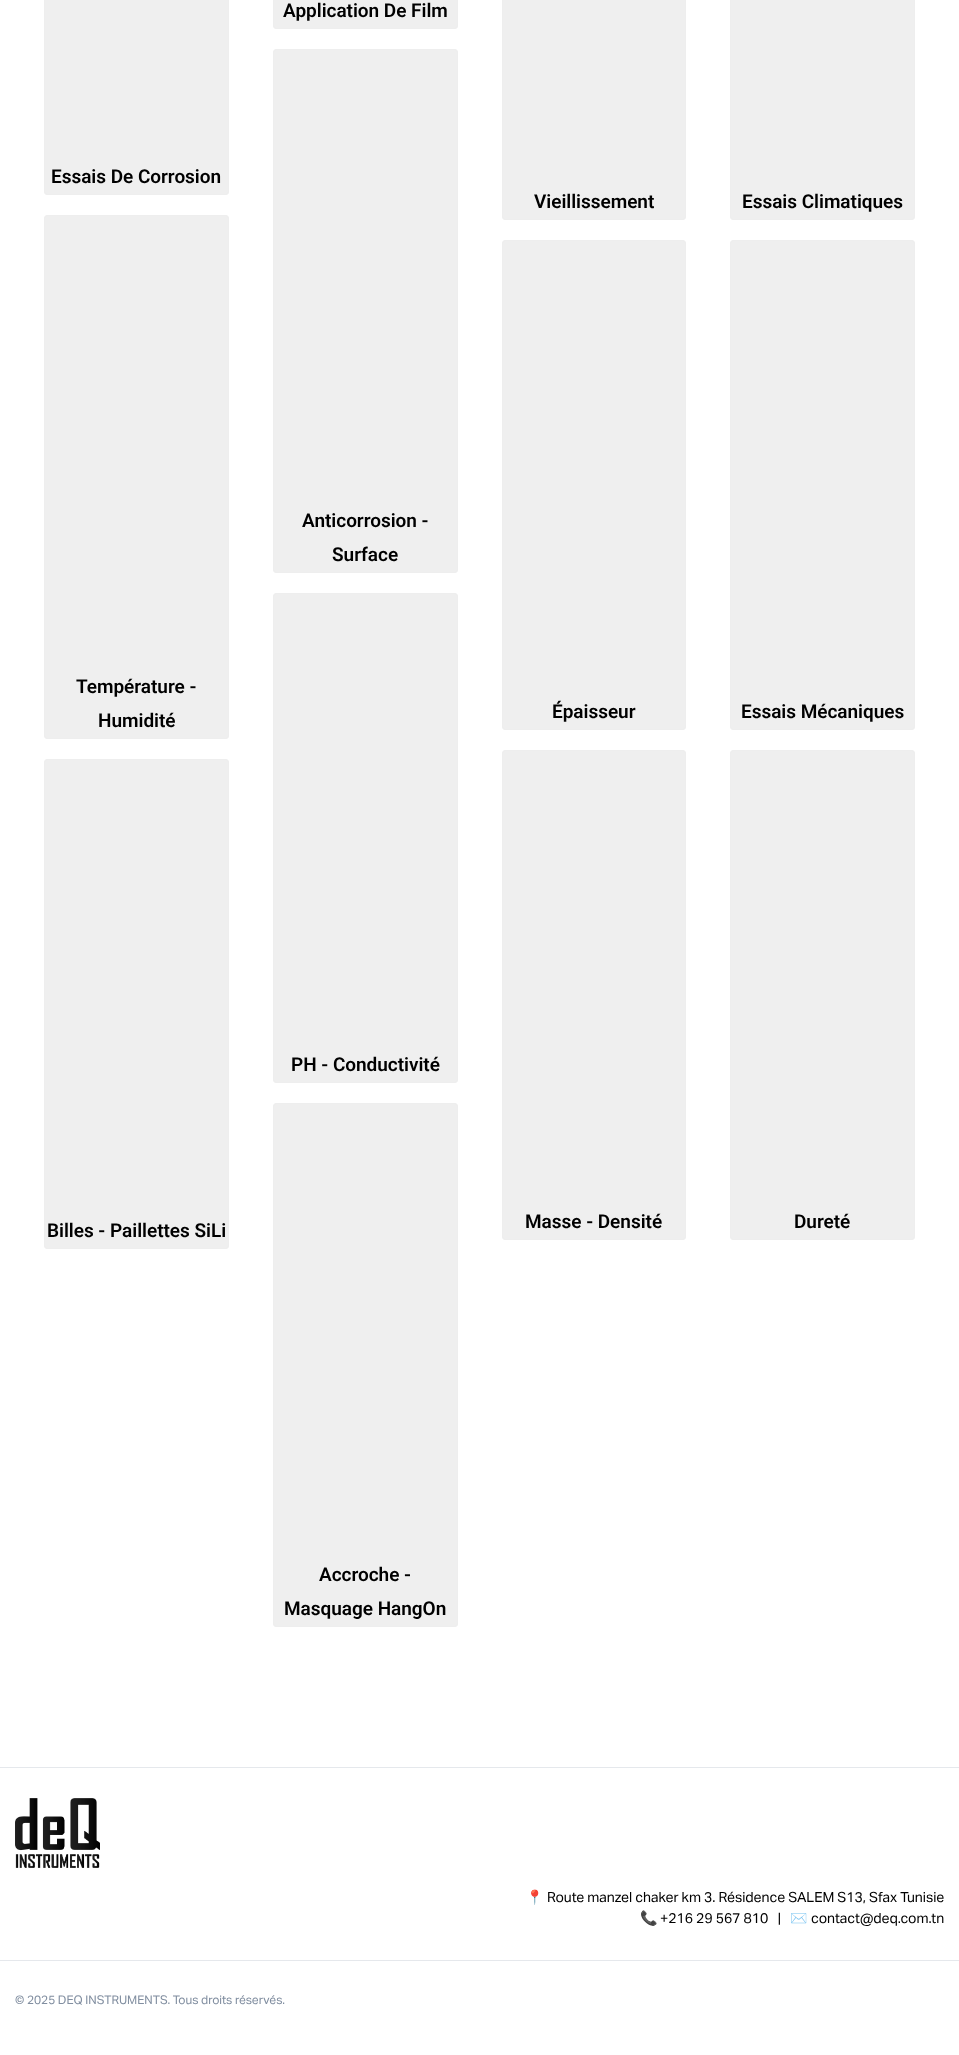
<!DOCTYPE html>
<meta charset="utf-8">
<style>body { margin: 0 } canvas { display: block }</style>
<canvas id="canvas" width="959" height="2055"></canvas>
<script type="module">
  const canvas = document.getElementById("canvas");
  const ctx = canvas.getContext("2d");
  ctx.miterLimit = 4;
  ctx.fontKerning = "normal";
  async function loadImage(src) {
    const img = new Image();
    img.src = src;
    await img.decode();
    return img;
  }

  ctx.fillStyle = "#ffffff";
  ctx.fillRect(0, 0, 959, 2055);
  ctx.fillStyle = "#efefef";
  ctx.beginPath();
  ctx.roundRect(44.5, -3.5, 184, 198, 2.5);
  ctx.fill();
  ctx.strokeStyle = "#eeeeee";
  ctx.stroke();
  ctx.letterSpacing = "-0.03px";
  ctx.font = "600 19px Roboto";
  ctx.fillStyle = "#000000";
  ctx.fillText("Essais De Corrosion", 51, 183);
  ctx.fillStyle = "#efefef";
  ctx.beginPath();
  ctx.roundRect(44.5, 215.5, 184, 523, 2.5);
  ctx.fill();
  ctx.stroke();
  ctx.fillStyle = "#000000";
  ctx.fillText("Température -", 76, 693);
  ctx.fillText("Humidité", 98, 727);
  ctx.fillStyle = "#efefef";
  ctx.beginPath();
  ctx.roundRect(44.5, 759.5, 184, 489, 2.5);
  ctx.fill();
  ctx.stroke();
  ctx.fillStyle = "#000000";
  ctx.fillText("Billes - Paillettes SiLi", 47, 1237);
  ctx.fillStyle = "#efefef";
  ctx.beginPath();
  ctx.roundRect(273.5, -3.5, 184, 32, 2.5);
  ctx.fill();
  ctx.stroke();
  ctx.fillStyle = "#000000";
  ctx.fillText("Application De Film", 283, 17);
  ctx.fillStyle = "#efefef";
  ctx.beginPath();
  ctx.roundRect(273.5, 49.5, 184, 523, 2.5);
  ctx.fill();
  ctx.stroke();
  ctx.fillStyle = "#000000";
  ctx.fillText("Anticorrosion -", 302, 527);
  ctx.fillText("Surface", 332, 561);
  ctx.fillStyle = "#efefef";
  ctx.beginPath();
  ctx.roundRect(273.5, 593.5, 184, 489, 2.5);
  ctx.fill();
  ctx.stroke();
  ctx.fillStyle = "#000000";
  ctx.fillText("PH - Conductivité", 291, 1071);
  ctx.fillStyle = "#efefef";
  ctx.beginPath();
  ctx.roundRect(273.5, 1103.5, 184, 523, 2.5);
  ctx.fill();
  ctx.stroke();
  ctx.fillStyle = "#000000";
  ctx.fillText("Accroche -", 319, 1581);
  ctx.fillText("Masquage HangOn", 284, 1615);
  ctx.fillStyle = "#efefef";
  ctx.beginPath();
  ctx.roundRect(502.5, -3.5, 183, 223, 2.5);
  ctx.fill();
  ctx.stroke();
  ctx.fillStyle = "#000000";
  ctx.fillText("Vieillissement", 534, 208);
  ctx.fillStyle = "#efefef";
  ctx.beginPath();
  ctx.roundRect(502.5, 240.5, 183, 489, 2.5);
  ctx.fill();
  ctx.stroke();
  ctx.fillStyle = "#000000";
  ctx.fillText("Épaisseur", 552, 718);
  ctx.fillStyle = "#efefef";
  ctx.beginPath();
  ctx.roundRect(502.5, 750.5, 183, 489, 2.5);
  ctx.fill();
  ctx.stroke();
  ctx.fillStyle = "#000000";
  ctx.fillText("Masse - Densité", 525, 1228);
  ctx.fillStyle = "#efefef";
  ctx.beginPath();
  ctx.roundRect(730.5, -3.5, 184, 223, 2.5);
  ctx.fill();
  ctx.stroke();
  ctx.fillStyle = "#000000";
  ctx.fillText("Essais Climatiques", 742, 208);
  ctx.fillStyle = "#efefef";
  ctx.beginPath();
  ctx.roundRect(730.5, 240.5, 184, 489, 2.5);
  ctx.fill();
  ctx.stroke();
  ctx.fillStyle = "#000000";
  ctx.fillText("Essais Mécaniques", 741, 718);
  ctx.fillStyle = "#efefef";
  ctx.beginPath();
  ctx.roundRect(730.5, 750.5, 184, 489, 2.5);
  ctx.fill();
  ctx.stroke();
  ctx.fillStyle = "#000000";
  ctx.fillText("Dureté", 794, 1228);
  ctx.fillStyle = "#e5e8ec";
  ctx.fillRect(0, 1767, 959, 1);
  ctx.drawImage(await loadImage("img1.png"), 15, 1798, 85, 70);
  ctx.font = "14px Noto Color Emoji";
  ctx.fillStyle = "#000000";
  ctx.fillText("📍", 526, 1902);
  ctx.font = "14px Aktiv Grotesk";
  ctx.fillText("Route manzel chaker km 3. Résidence SALEM S13, Sfax Tunisie", 547, 1902);
  ctx.font = "14px Noto Color Emoji";
  ctx.fillText("📞", 640, 1923);
  ctx.font = "14px Aktiv Grotesk";
  ctx.fillText("+216 29 567 810   |", 660, 1923);
  ctx.font = "14px Noto Color Emoji";
  ctx.fillText("✉️", 790, 1923);
  ctx.font = "14px Aktiv Grotesk";
  ctx.fillText("contact@deq.com.tn", 811, 1923);
  ctx.fillStyle = "#e5e8ec";
  ctx.fillRect(0, 1960, 959, 1);
  ctx.font = "12px Aktiv Grotesk";
  ctx.fillStyle = "#818ea0";
  ctx.fillText("© 2025 DEQ INSTRUMENTS. Tous droits réservés.", 15, 2004);
</script>
